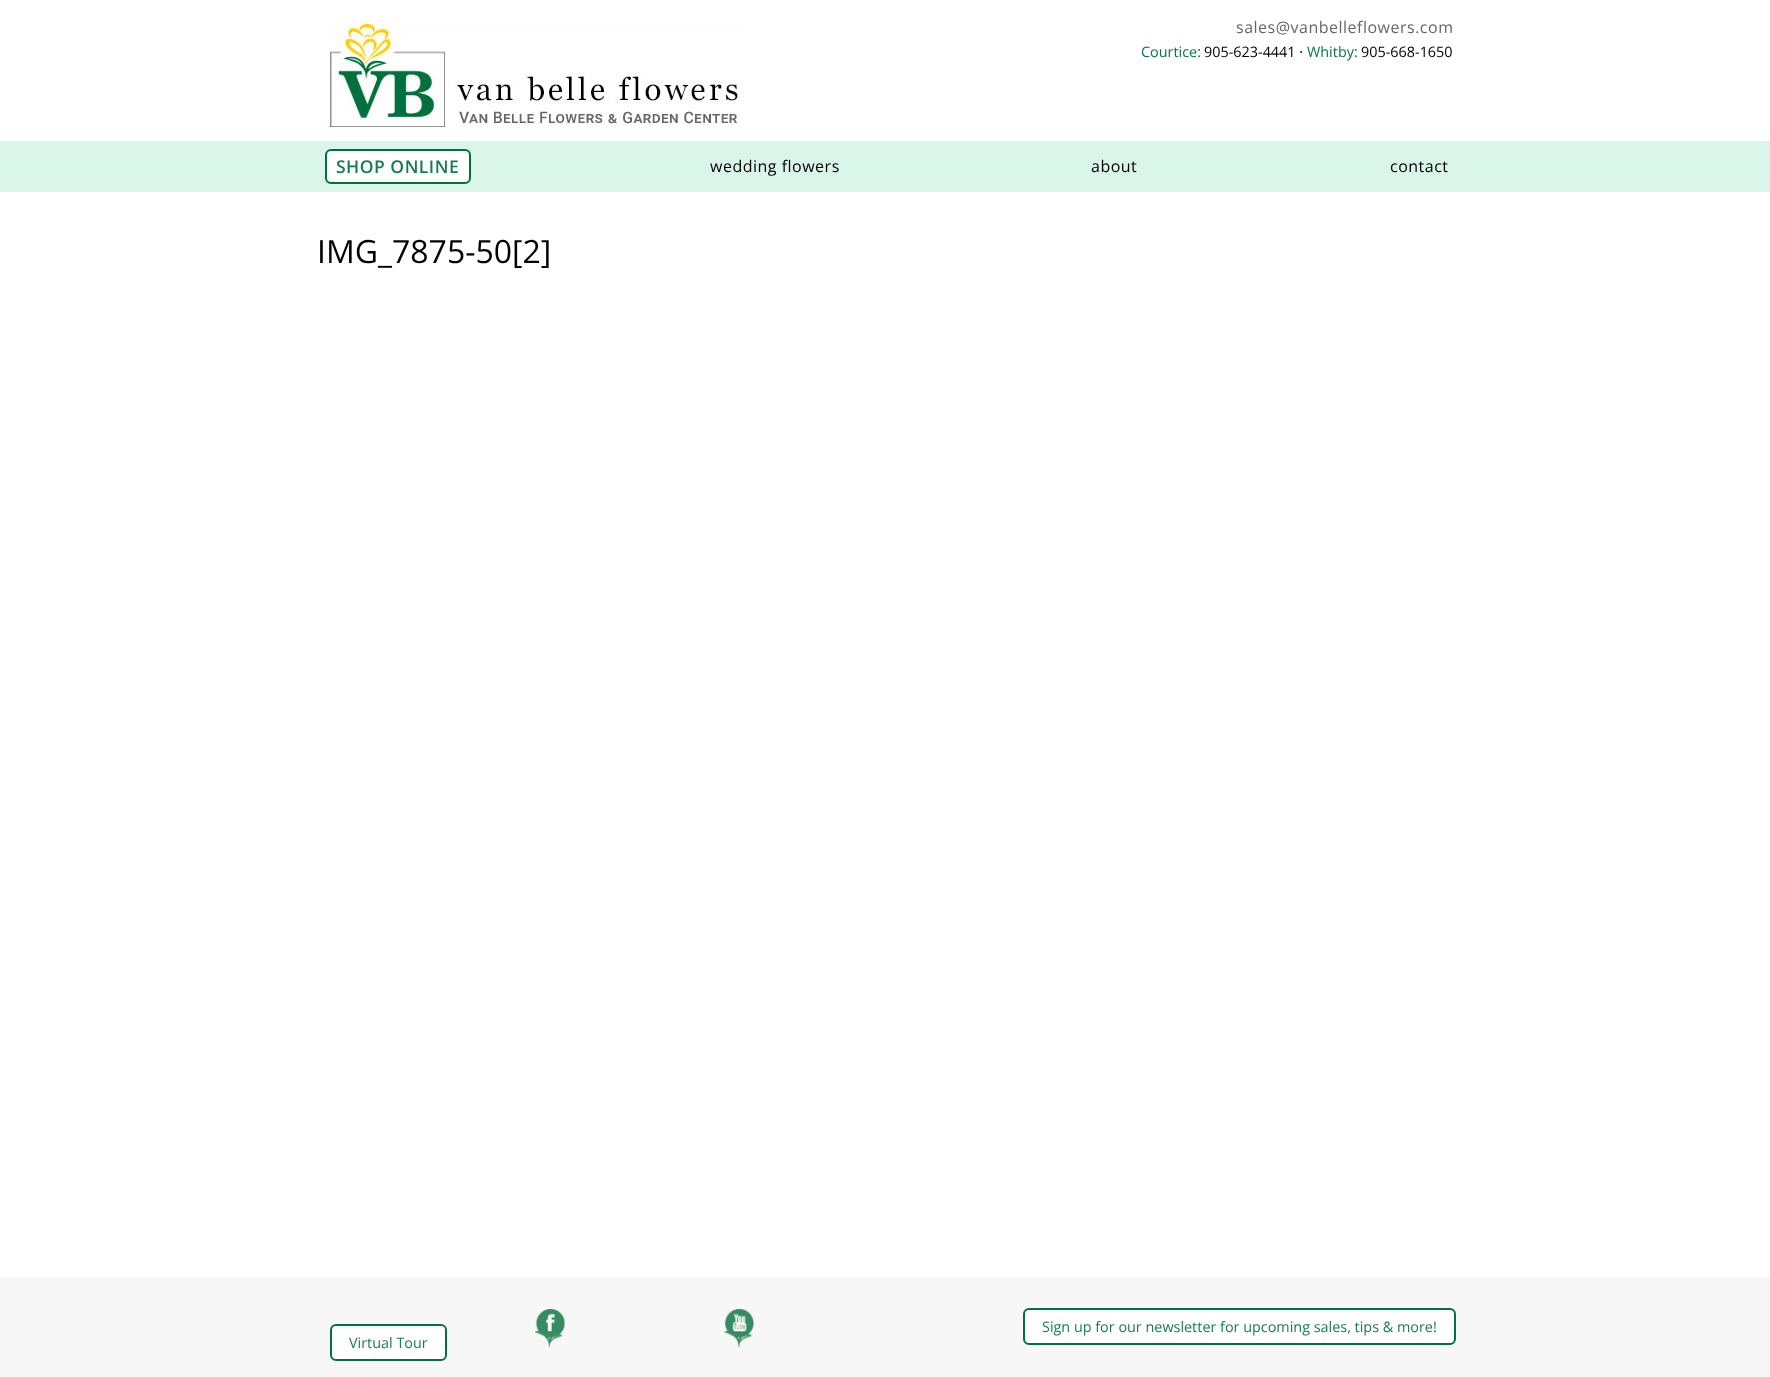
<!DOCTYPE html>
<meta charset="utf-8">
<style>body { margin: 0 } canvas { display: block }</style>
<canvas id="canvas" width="1770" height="1377"></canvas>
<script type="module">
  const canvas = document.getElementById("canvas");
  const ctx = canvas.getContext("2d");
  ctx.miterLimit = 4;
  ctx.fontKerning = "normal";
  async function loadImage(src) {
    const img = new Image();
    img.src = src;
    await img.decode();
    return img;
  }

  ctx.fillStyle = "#ffffff";
  ctx.fillRect(0, 0, 1770, 1377);
  ctx.drawImage(await loadImage("img1.png"), 325, 24, 416, 104);
  ctx.letterSpacing = "0.5px";
  ctx.font = "16px Open Sans";
  ctx.fillStyle = "#666666";
  ctx.fillText("sales@vanbelleflowers.com", 1236, 33);
  ctx.letterSpacing = "0px";
  ctx.font = "14.4px Open Sans";
  ctx.fillStyle = "#087549";
  ctx.fillText("Courtice:", 1141, 57);
  ctx.fillStyle = "#000000";
  ctx.fillText("905-623-4441 ·", 1204, 57);
  ctx.fillStyle = "#087549";
  ctx.fillText("Whitby:", 1307, 57);
  ctx.fillStyle = "#000000";
  ctx.fillText("905-668-1650", 1361, 57);
  ctx.fillStyle = "#daf5e9";
  ctx.fillRect(0, 141, 1770, 51);
  ctx.fillStyle = "#ffffff";
  ctx.beginPath();
  ctx.roundRect(326, 150, 144, 33, 5);
  ctx.fill();
  ctx.strokeStyle = "#00703c";
  ctx.lineWidth = 2;
  ctx.stroke();
  ctx.letterSpacing = "0.5px";
  ctx.font = "600 17.5px Open Sans";
  ctx.fillStyle = "#177d4e";
  ctx.fillText("SHOP ONLINE", 336, 173);
  ctx.font = "16px Open Sans";
  ctx.fillStyle = "#000000";
  ctx.fillText("wedding flowers", 710, 172);
  ctx.fillText("about", 1091, 172);
  ctx.fillText("contact", 1390, 172);
  ctx.letterSpacing = "0px";
  ctx.font = "32px Open Sans";
  ctx.fillText("IMG_7875-50[2]", 317, 263);
  ctx.fillStyle = "#f7f7f7";
  ctx.fillRect(0, 1277, 1770, 100);
  ctx.drawImage(await loadImage("img2.png"), 535, 1309, 30, 39);
  ctx.drawImage(await loadImage("img3.png"), 724, 1309, 30, 39);
  ctx.fillStyle = "#ffffff";
  ctx.beginPath();
  ctx.roundRect(1024, 1309, 431, 35, 5);
  ctx.fill();
  ctx.strokeStyle = "#03713e";
  ctx.stroke();
  ctx.font = "14.4px Open Sans";
  ctx.fillStyle = "#177d4e";
  ctx.fillText("Sign up for our newsletter for upcoming sales, tips & more!", 1042, 1332);
  ctx.fillStyle = "#ffffff";
  ctx.beginPath();
  ctx.roundRect(331, 1325, 115, 35, 5);
  ctx.fill();
  ctx.stroke();
  ctx.fillStyle = "#177d4e";
  ctx.fillText("Virtual Tour", 349, 1348);
</script>
